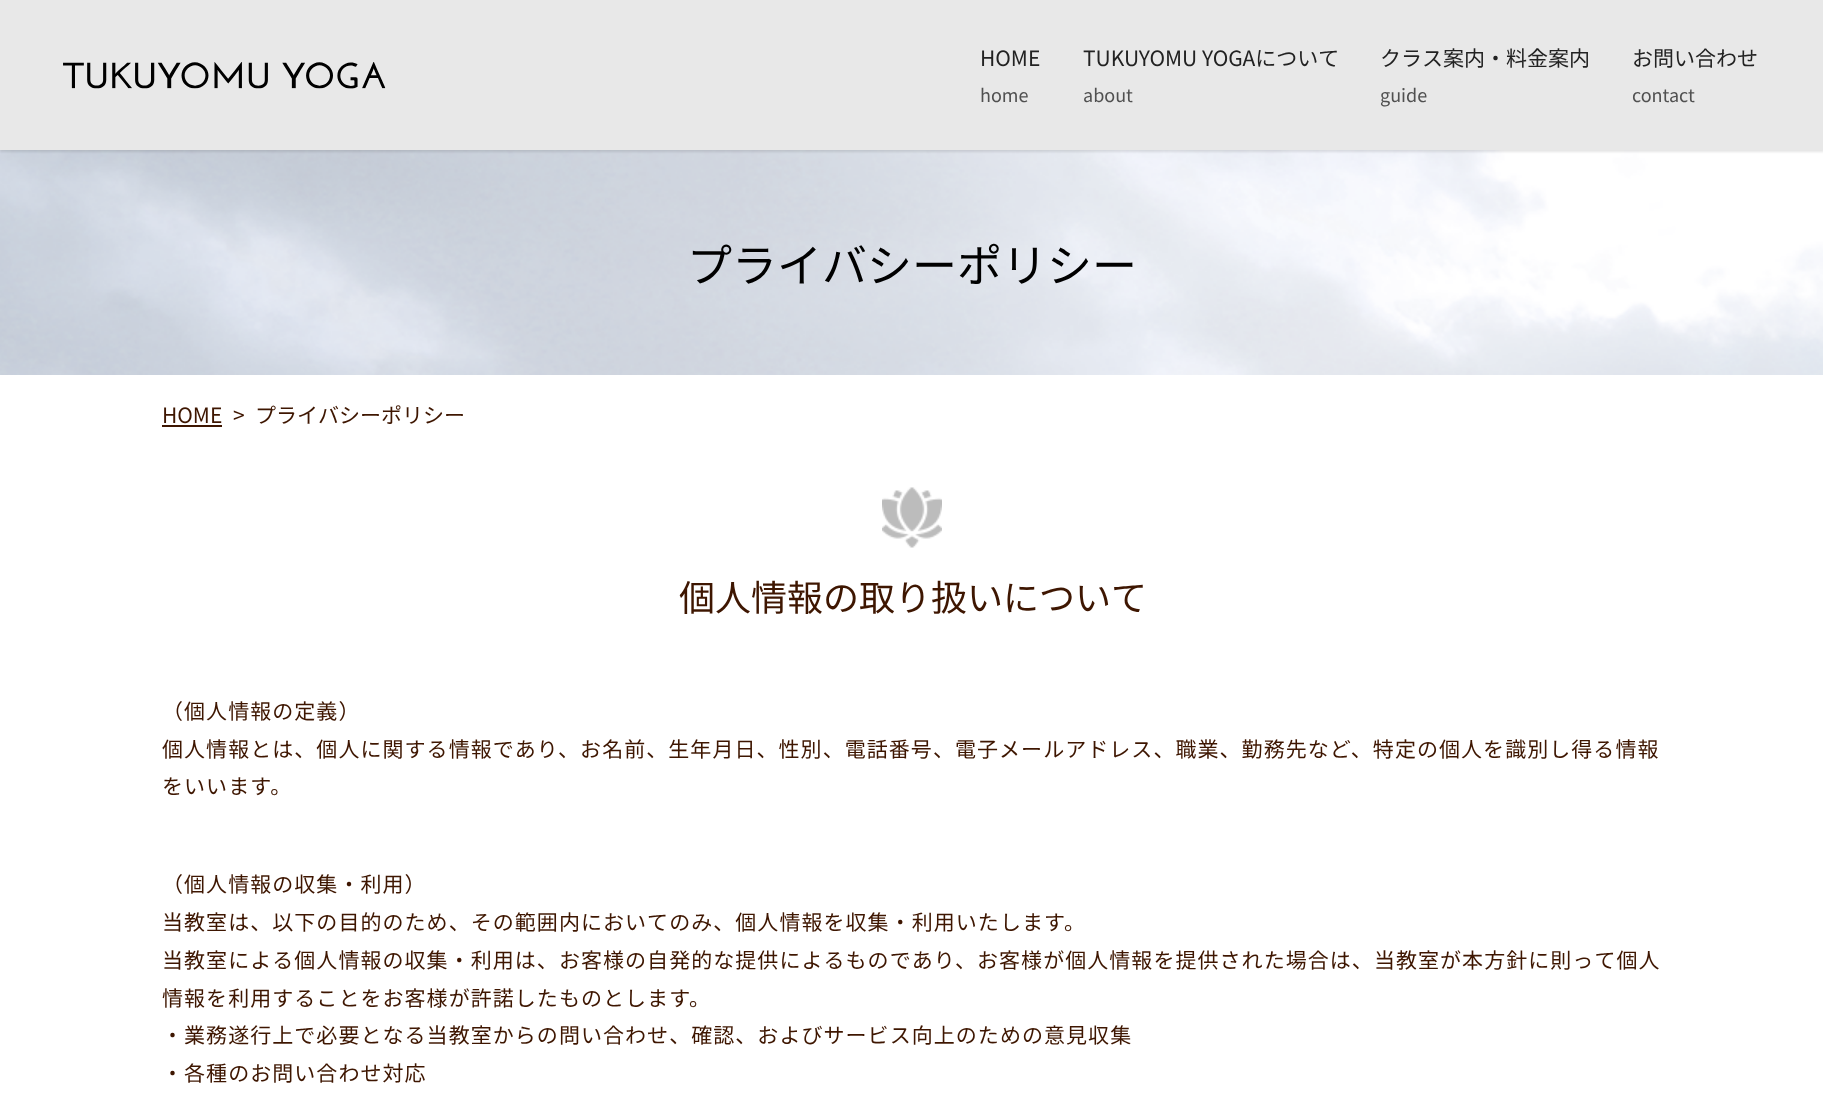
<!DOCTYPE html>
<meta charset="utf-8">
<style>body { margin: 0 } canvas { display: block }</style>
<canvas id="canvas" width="1823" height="1101"></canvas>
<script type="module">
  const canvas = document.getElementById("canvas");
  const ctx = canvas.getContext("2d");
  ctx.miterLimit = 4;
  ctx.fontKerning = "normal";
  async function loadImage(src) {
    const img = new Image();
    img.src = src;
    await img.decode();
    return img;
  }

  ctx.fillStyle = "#ffffff";
  ctx.fillRect(0, 0, 1823, 1101);
  ctx.drawImage(await loadImage("img2.png"), 0, 150, 1823, 225);
  ctx.fillStyle = "rgba(0, 0, 0, 0.1)";
  ctx.filter = "blur(1px)";
  ctx.beginPath();
  ctx.rect(0, 2, 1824, 150);
  ctx.fill();
  ctx.filter = "none";
  ctx.fillStyle = "#e8e8e8";
  ctx.fillRect(0, 0, 1823, 150);
  ctx.drawImage(await loadImage("img1.png"), 63, 62, 323, 27);
  ctx.font = "21px Noto Sans JP";
  ctx.fillStyle = "#222222";
  ctx.fillText("HOME", 980, 66);
  ctx.font = "18px Noto Sans JP";
  ctx.fillStyle = "#505050";
  ctx.fillText("home", 980, 102);
  ctx.font = "21px Noto Sans JP";
  ctx.fillStyle = "#222222";
  ctx.fillText("TUKUYOMU YOGAについて", 1083, 66);
  ctx.font = "18px Noto Sans JP";
  ctx.fillStyle = "#505050";
  ctx.fillText("about", 1083, 102);
  ctx.font = "21px Noto Sans JP";
  ctx.fillStyle = "#222222";
  ctx.fillText("クラス案内・料金案内", 1380, 66);
  ctx.font = "18px Noto Sans JP";
  ctx.fillStyle = "#505050";
  ctx.fillText("guide", 1380, 102);
  ctx.font = "21px Noto Sans JP";
  ctx.fillStyle = "#222222";
  ctx.fillText("お問い合わせ", 1632, 66);
  ctx.font = "18px Noto Sans JP";
  ctx.fillStyle = "#505050";
  ctx.fillText("contact", 1632, 102);
  ctx.font = "45px Noto Sans JP";
  ctx.fillStyle = "#000000";
  ctx.fillText("プライバシーポリシー", 687, 282);
  ctx.font = "21px Noto Sans JP";
  ctx.fillStyle = "#3e1601";
  ctx.fillText("HOME", 162, 423);
  ctx.fillRect(162, 425, 60, 2);
  ctx.fillText(">", 233, 423);
  ctx.fillText("プライバシーポリシー", 255, 423);
  ctx.drawImage(await loadImage("img3.png"), 882, 487, 60, 61);
  ctx.font = "36px Noto Sans JP";
  ctx.fillText("個人情報の取り扱いについて", 679, 611);
  ctx.letterSpacing = "1.05px";
  ctx.font = "21px Noto Sans JP";
  ctx.fillText("（個人情報の定義）", 162, 719);
  ctx.fillText("個人情報とは、個人に関する情報であり、お名前、生年月日、性別、電話番号、電子メールアドレス、職業、勤務先など、特定の個人を識別し得る情報", 162, 757);
  ctx.fillText("をいいます。", 162, 794);
  ctx.fillText("（個人情報の収集・利用）", 162, 892);
  ctx.fillText("当教室は、以下の目的のため、その範囲内においてのみ、個人情報を収集・利用いたします。", 162, 930);
  ctx.fillText("当教室による個人情報の収集・利用は、お客様の自発的な提供によるものであり、お客様が個人情報を提供された場合は、当教室が本方針に則って個人", 162, 968);
  ctx.fillText("情報を利用することをお客様が許諾したものとします。", 162, 1006);
  ctx.fillText("・業務遂行上で必要となる当教室からの問い合わせ、確認、およびサービス向上のための意見収集", 162, 1043);
  ctx.fillText("・各種のお問い合わせ対応", 162, 1081);
</script>
